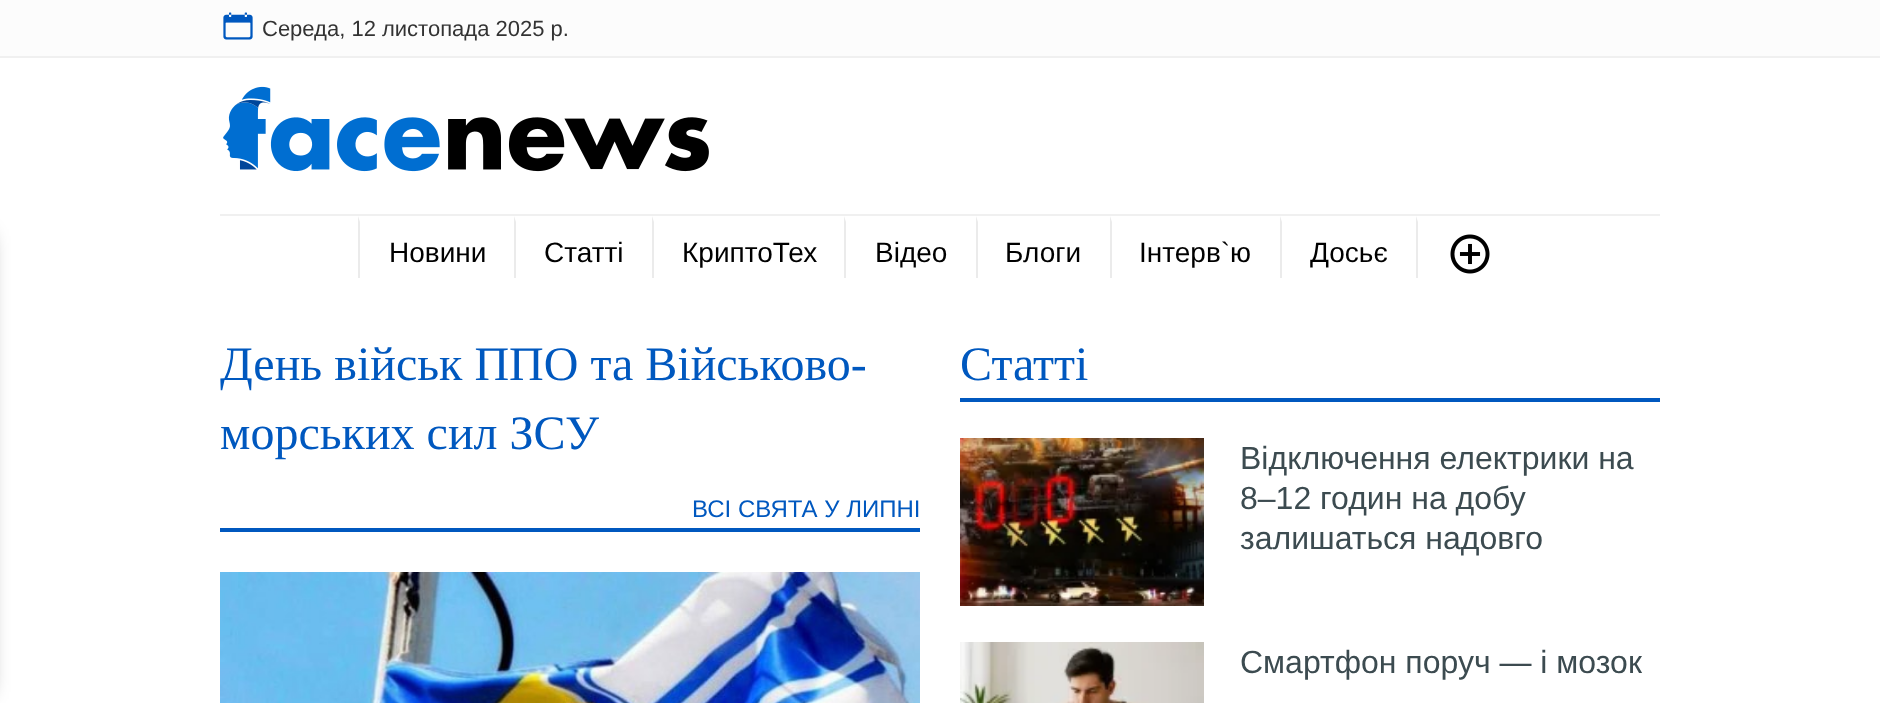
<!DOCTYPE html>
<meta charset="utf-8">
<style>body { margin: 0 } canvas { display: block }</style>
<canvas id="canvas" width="1880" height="703"></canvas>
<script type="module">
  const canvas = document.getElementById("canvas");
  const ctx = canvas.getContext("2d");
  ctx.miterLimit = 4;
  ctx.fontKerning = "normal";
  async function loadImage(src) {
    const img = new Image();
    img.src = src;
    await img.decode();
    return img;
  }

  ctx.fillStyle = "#ffffff";
  ctx.fillRect(0, 0, 1880, 703);
  ctx.fillStyle = "rgba(0, 0, 0, 0.5)";
  ctx.filter = "blur(10px)";
  ctx.beginPath();
  ctx.rect(-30, 236, 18, 456);
  ctx.fill();
  ctx.filter = "none";
  ctx.fillStyle = "#fcfcfc";
  ctx.fillRect(0, 0, 1880, 56);
  ctx.fillStyle = "#f0f0f0";
  ctx.fillRect(0, 56, 1880, 2);
  ctx.drawImage(await loadImage("img1.png"), 223, 12, 30, 28);
  ctx.font = "22px Liberation Sans";
  ctx.fillStyle = "#333333";
  ctx.fillText("Середа, 12 листопада 2025 р.", 262, 36);
  ctx.fillStyle = "#f0f0f0";
  ctx.fillRect(220, 214, 1440, 2);
  ctx.drawImage(await loadImage("img2.png"), 223, 86, 486, 86);
  ctx.fillStyle = "#ebebeb";
  ctx.beginPath();
  ctx.moveTo(358, 278);
  ctx.lineTo(358, 216);
  ctx.lineTo(360, 222);
  ctx.lineTo(360, 278);
  ctx.closePath();
  ctx.fill();
  ctx.font = "28px Liberation Sans";
  ctx.fillStyle = "#000000";
  ctx.fillText("Новини", 389, 262);
  ctx.fillStyle = "#ebebeb";
  ctx.beginPath();
  ctx.moveTo(514, 278);
  ctx.lineTo(514, 216);
  ctx.lineTo(516, 222);
  ctx.lineTo(516, 278);
  ctx.closePath();
  ctx.fill();
  ctx.fillStyle = "#000000";
  ctx.fillText("Статті", 544, 262);
  ctx.fillStyle = "#ebebeb";
  ctx.beginPath();
  ctx.moveTo(652, 278);
  ctx.lineTo(652, 216);
  ctx.lineTo(654, 222);
  ctx.lineTo(654, 278);
  ctx.closePath();
  ctx.fill();
  ctx.fillStyle = "#000000";
  ctx.fillText("КриптоТех", 682, 262);
  ctx.fillStyle = "#ebebeb";
  ctx.beginPath();
  ctx.moveTo(844, 278);
  ctx.lineTo(844, 216);
  ctx.lineTo(846, 222);
  ctx.lineTo(846, 278);
  ctx.closePath();
  ctx.fill();
  ctx.fillStyle = "#000000";
  ctx.fillText("Відео", 875, 262);
  ctx.fillStyle = "#ebebeb";
  ctx.beginPath();
  ctx.moveTo(976, 278);
  ctx.lineTo(976, 216);
  ctx.lineTo(978, 222);
  ctx.lineTo(978, 278);
  ctx.closePath();
  ctx.fill();
  ctx.fillStyle = "#000000";
  ctx.fillText("Блоги", 1005, 262);
  ctx.fillStyle = "#ebebeb";
  ctx.beginPath();
  ctx.moveTo(1110, 278);
  ctx.lineTo(1110, 216);
  ctx.lineTo(1112, 222);
  ctx.lineTo(1112, 278);
  ctx.closePath();
  ctx.fill();
  ctx.fillStyle = "#000000";
  ctx.fillText("Інтерв`ю", 1139, 262);
  ctx.fillStyle = "#ebebeb";
  ctx.beginPath();
  ctx.moveTo(1280, 278);
  ctx.lineTo(1280, 216);
  ctx.lineTo(1282, 222);
  ctx.lineTo(1282, 278);
  ctx.closePath();
  ctx.fill();
  ctx.fillStyle = "#000000";
  ctx.fillText("Досьє", 1310, 262);
  ctx.fillStyle = "#ebebeb";
  ctx.beginPath();
  ctx.moveTo(1416, 278);
  ctx.lineTo(1416, 216);
  ctx.lineTo(1418, 222);
  ctx.lineTo(1418, 278);
  ctx.closePath();
  ctx.fill();
  ctx.drawImage(await loadImage("img3.png"), 1450, 234, 40, 40);
  ctx.fillStyle = "#0058bf";
  ctx.fillRect(220, 528, 700, 4);
  ctx.font = "48px Liberation Serif";
  ctx.fillText("День військ ППО та Військово-", 220, 380);
  ctx.fillText("морських сил ЗСУ", 220, 449);
  ctx.font = "24px Liberation Sans";
  ctx.fillText("ВСІ СВЯТА У ЛИПНІ", 692, 517);
  ctx.drawImage(await loadImage("img4.png"), 220, 572, 700, 131);
  ctx.fillRect(960, 398, 700, 4);
  ctx.font = "48px Liberation Serif";
  ctx.fillText("Статті", 960, 380);
  ctx.drawImage(await loadImage("img5.png"), 960, 438, 244, 168);
  ctx.font = "32px Liberation Sans";
  ctx.fillStyle = "#3c4b50";
  ctx.fillText("Відключення електрики на", 1240, 469);
  ctx.fillText("8–12 годин на добу", 1240, 509);
  ctx.fillText("залишаться надовго", 1240, 549);
  ctx.drawImage(await loadImage("img6.png"), 960, 642, 244, 61);
  ctx.fillText("Смартфон поруч — і мозок", 1240, 673);
</script>
